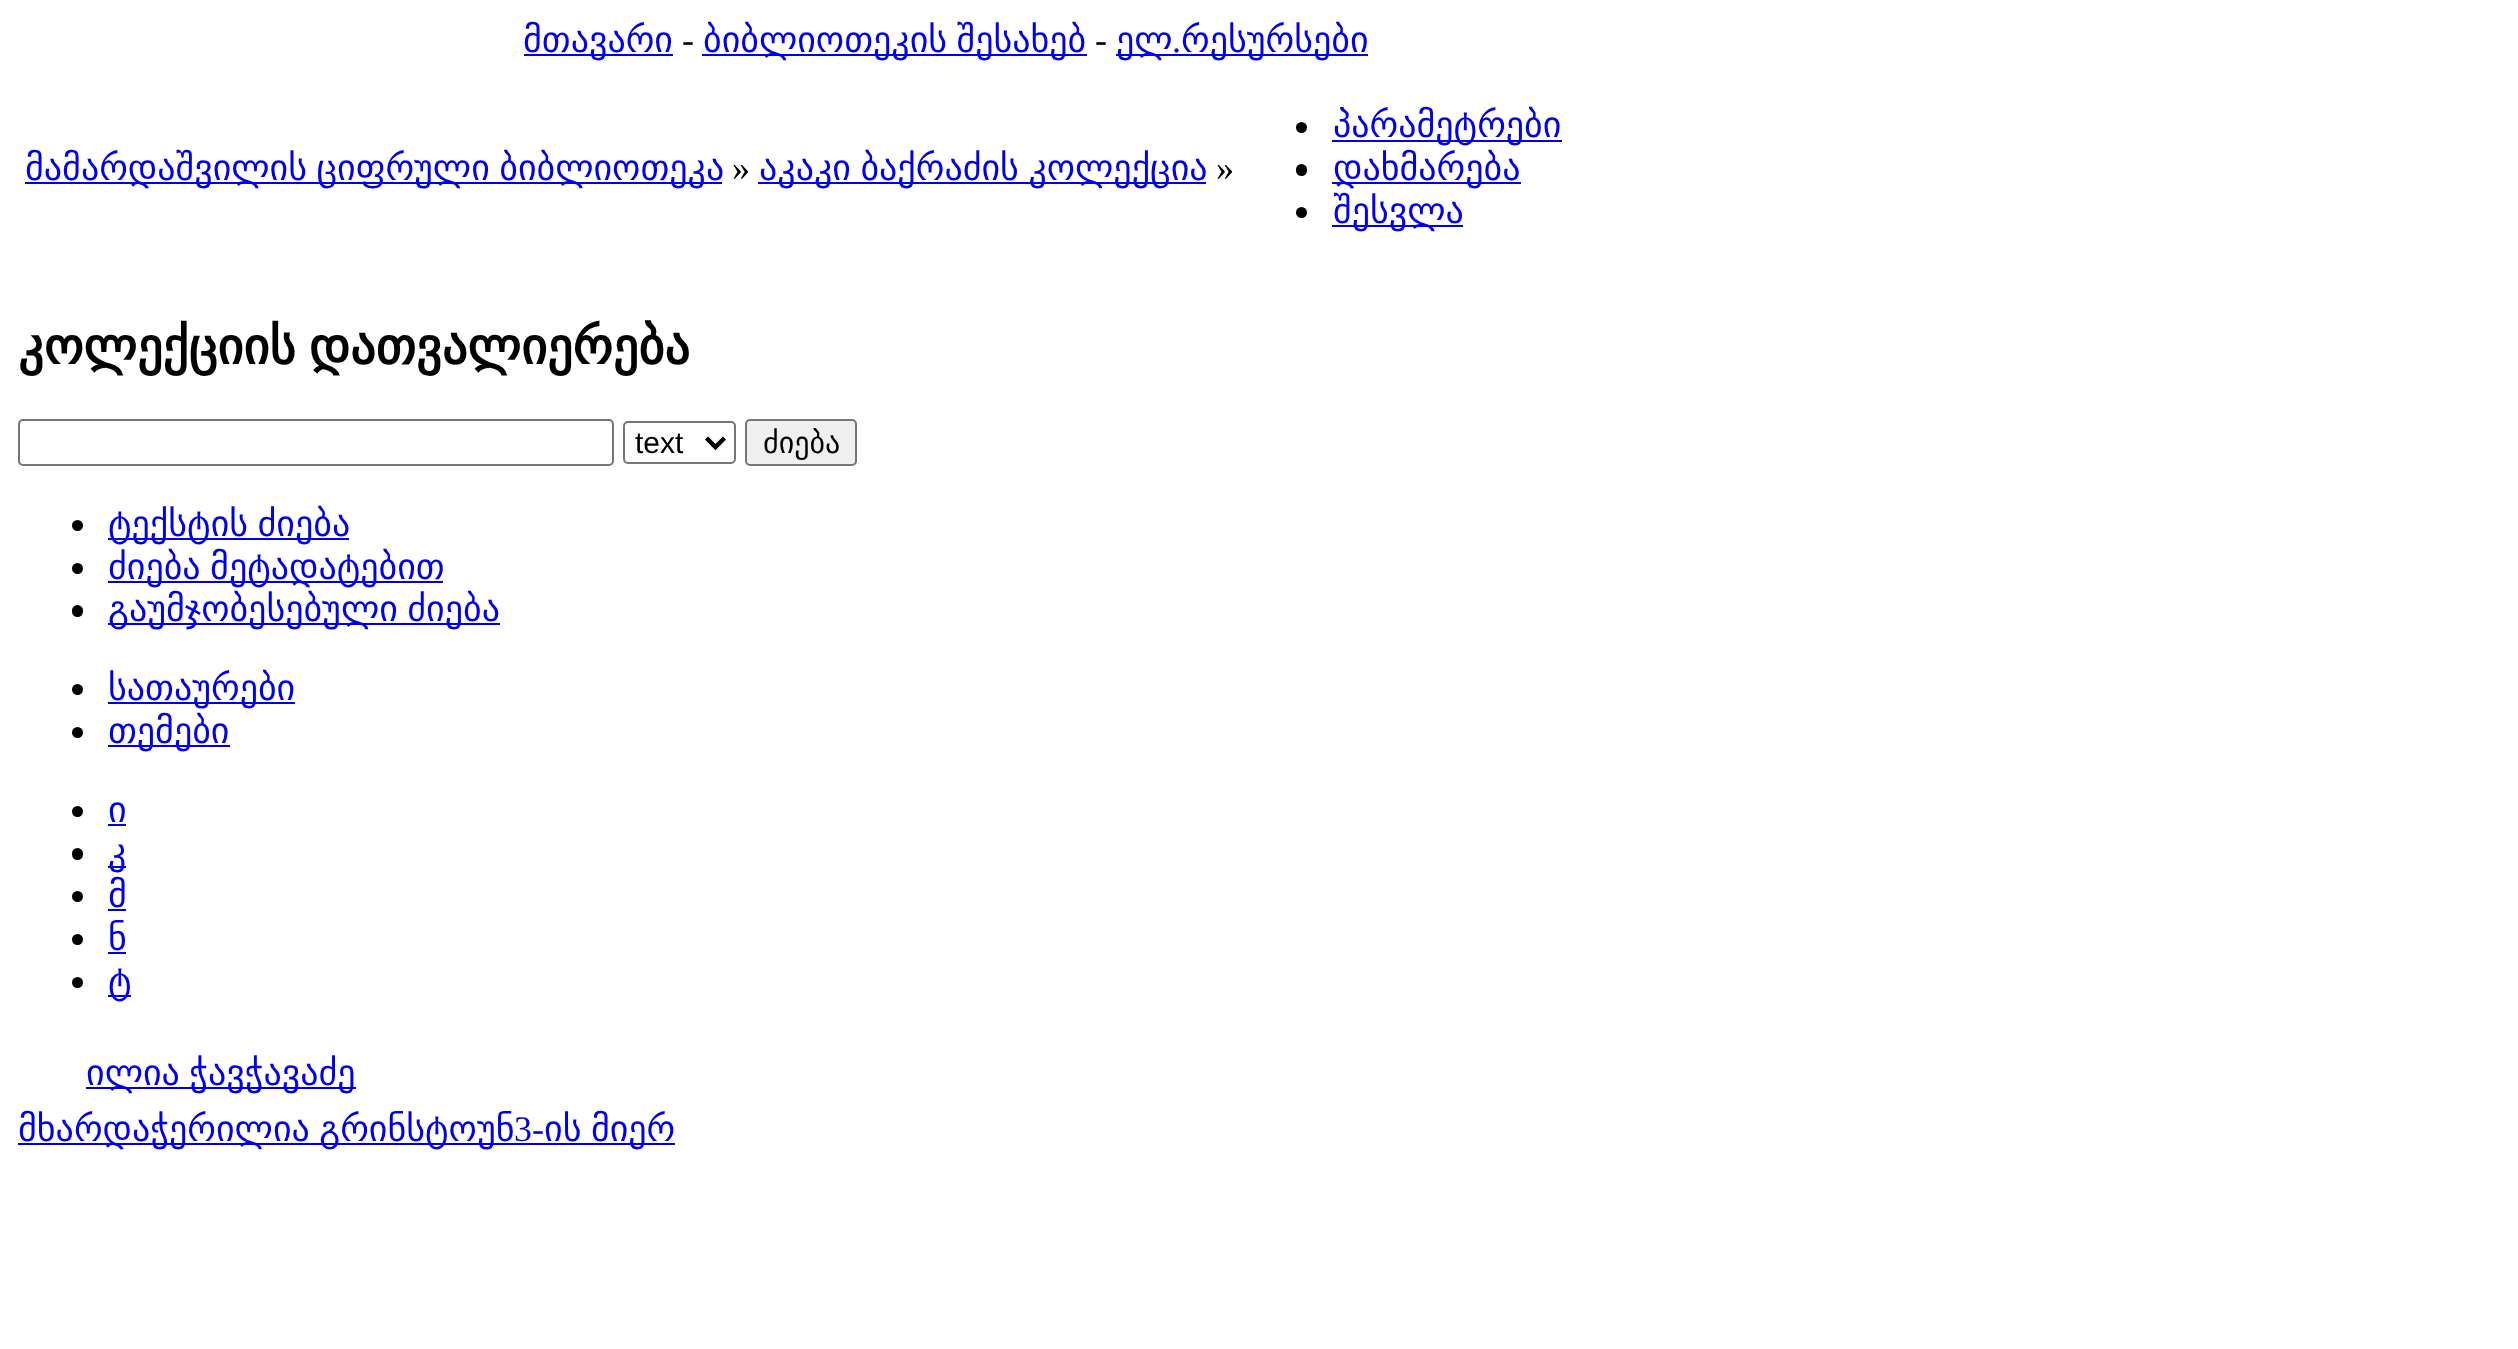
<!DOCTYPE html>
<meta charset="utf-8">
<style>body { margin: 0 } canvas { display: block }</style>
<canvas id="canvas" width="2518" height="1349"></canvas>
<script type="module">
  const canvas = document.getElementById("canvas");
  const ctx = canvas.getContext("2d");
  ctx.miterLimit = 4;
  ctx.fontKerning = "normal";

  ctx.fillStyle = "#ffffff";
  ctx.fillRect(0, 0, 2518, 1349);
  ctx.fillStyle = "#0000ee";
  ctx.fillRect(524, 54, 149, 2);
  ctx.font = "36px DejaVu Sans";
  ctx.fillText("მთავარი", 523, 52);
  ctx.font = "36px Liberation Serif";
  ctx.fillStyle = "#000000";
  ctx.fillText("-", 682, 52);
  ctx.fillStyle = "#0000ee";
  ctx.fillRect(702, 54, 385, 2);
  ctx.wordSpacing = "-2px";
  ctx.font = "36px DejaVu Sans";
  ctx.fillText("ბიბლიოთეკის შესახებ", 703, 52);
  ctx.wordSpacing = "0px";
  ctx.font = "36px Liberation Serif";
  ctx.fillStyle = "#000000";
  ctx.fillText("-", 1095, 52);
  ctx.fillStyle = "#0000ee";
  ctx.fillRect(1116, 54, 252, 2);
  ctx.font = "36px DejaVu Sans";
  ctx.fillText("ელ", 1116, 52);
  ctx.fillText("რესურსები", 1181, 52);
  ctx.font = "36px Liberation Serif";
  ctx.fillText(".", 1172, 52);
  ctx.fillRect(25, 182, 697, 2);
  ctx.wordSpacing = "-2px";
  ctx.font = "36px DejaVu Sans";
  ctx.fillText("მამარდაშვილის ციფრული ბიბლიოთეკა", 25, 180);
  ctx.wordSpacing = "0px";
  ctx.font = "36px Liberation Serif";
  ctx.fillStyle = "#000000";
  ctx.fillText("»", 732, 180);
  ctx.fillStyle = "#0000ee";
  ctx.fillRect(758, 182, 448, 2);
  ctx.wordSpacing = "-2px";
  ctx.font = "36px DejaVu Sans";
  ctx.fillText("აკაკი ბაქრაძის კოლექცია", 759, 180);
  ctx.wordSpacing = "0px";
  ctx.font = "36px Liberation Serif";
  ctx.fillStyle = "#000000";
  ctx.fillText("»", 1216, 180);
  ctx.beginPath();
  ctx.arc(1301.5, 127.5, 5.5, 0, Math.PI * 2);
  ctx.fill();
  ctx.fillStyle = "#0000ee";
  ctx.fillRect(1332, 140, 230, 2);
  ctx.font = "36px DejaVu Sans";
  ctx.fillText("პარამეტრები", 1333, 137);
  ctx.fillStyle = "#000000";
  ctx.beginPath();
  ctx.roundRect(1296, 164, 11, 12, 5.5);
  ctx.fill();
  ctx.fillStyle = "#0000ee";
  ctx.fillRect(1332, 182, 189, 2);
  ctx.fillText("დახმარება", 1333, 180);
  ctx.fillStyle = "#000000";
  ctx.beginPath();
  ctx.arc(1301.5, 212.5, 5.5, 0, Math.PI * 2);
  ctx.fill();
  ctx.fillStyle = "#0000ee";
  ctx.fillRect(1332, 225, 131, 2);
  ctx.fillText("შესვლა", 1333, 223);
  ctx.wordSpacing = "-3px";
  ctx.font = "bold 50.4px DejaVu Sans";
  ctx.fillStyle = "#000000";
  ctx.fillText("კოლექციის დათვალიერება", 18, 364);
  ctx.beginPath();
  ctx.roundRect(19, 420, 594, 45, 4);
  ctx.strokeStyle = "#767676";
  ctx.lineWidth = 2;
  ctx.stroke();
  ctx.beginPath();
  ctx.roundRect(624, 422, 111, 41, 4);
  ctx.stroke();
  ctx.beginPath();
  ctx.moveTo(706.5, 438);
  ctx.lineTo(715.5, 447);
  ctx.lineTo(724.5, 438);
  ctx.strokeStyle = "#000000";
  ctx.lineWidth = 4.5;
  ctx.stroke();
  ctx.wordSpacing = "0px";
  ctx.font = "30px Liberation Sans";
  ctx.fillText("text", 635, 453);
  ctx.fillStyle = "#efefef";
  ctx.beginPath();
  ctx.roundRect(746, 420, 110, 45, 4);
  ctx.fill();
  ctx.strokeStyle = "#767676";
  ctx.lineWidth = 2;
  ctx.stroke();
  ctx.font = "30px DejaVu Sans";
  ctx.fillStyle = "#000000";
  ctx.fillText("ძიება", 763, 453);
  ctx.beginPath();
  ctx.arc(77.5, 525.5, 5.5, 0, Math.PI * 2);
  ctx.fill();
  ctx.fillStyle = "#0000ee";
  ctx.fillRect(108, 538, 241, 2);
  ctx.wordSpacing = "-2px";
  ctx.font = "36px DejaVu Sans";
  ctx.fillText("ტექსტის ძიება", 108, 536);
  ctx.fillStyle = "#000000";
  ctx.beginPath();
  ctx.arc(77.5, 568.5, 5.5, 0, Math.PI * 2);
  ctx.fill();
  ctx.fillStyle = "#0000ee";
  ctx.fillRect(108, 581, 335, 2);
  ctx.fillText("ძიება მეტადატებით", 108, 579);
  ctx.fillStyle = "#000000";
  ctx.beginPath();
  ctx.roundRect(72, 605, 11, 12, 5.5);
  ctx.fill();
  ctx.fillStyle = "#0000ee";
  ctx.fillRect(108, 623, 392, 2);
  ctx.fillText("გაუმჯობესებული ძიება", 108, 621);
  ctx.fillStyle = "#000000";
  ctx.beginPath();
  ctx.arc(77.5, 689.5, 5.5, 0, Math.PI * 2);
  ctx.fill();
  ctx.fillStyle = "#0000ee";
  ctx.fillRect(108, 702, 187, 2);
  ctx.wordSpacing = "0px";
  ctx.fillText("სათაურები", 108, 700);
  ctx.fillStyle = "#000000";
  ctx.beginPath();
  ctx.arc(77.5, 732.5, 5.5, 0, Math.PI * 2);
  ctx.fill();
  ctx.fillStyle = "#0000ee";
  ctx.fillRect(108, 745, 122, 2);
  ctx.fillText("თემები", 108, 743);
  ctx.fillStyle = "#000000";
  ctx.beginPath();
  ctx.arc(77.5, 811.5, 5.5, 0, Math.PI * 2);
  ctx.fill();
  ctx.fillStyle = "#0000ee";
  ctx.fillText("ი", 108, 822);
  ctx.fillRect(108, 824, 18, 2);
  ctx.fillStyle = "#000000";
  ctx.beginPath();
  ctx.roundRect(72, 848, 11, 12, 5.5);
  ctx.fill();
  ctx.fillStyle = "#0000ee";
  ctx.fillRect(108, 866, 18, 2);
  ctx.fillText("კ", 108, 864);
  ctx.fillStyle = "#000000";
  ctx.beginPath();
  ctx.arc(77.5, 896.5, 5.5, 0, Math.PI * 2);
  ctx.fill();
  ctx.fillStyle = "#0000ee";
  ctx.fillText("მ", 108, 907);
  ctx.fillRect(108, 909, 18, 2);
  ctx.fillStyle = "#000000";
  ctx.beginPath();
  ctx.arc(77.5, 939.5, 5.5, 0, Math.PI * 2);
  ctx.fill();
  ctx.fillStyle = "#0000ee";
  ctx.fillText("ნ", 108, 950);
  ctx.fillRect(108, 952, 18, 2);
  ctx.fillStyle = "#000000";
  ctx.beginPath();
  ctx.arc(77.5, 982.5, 5.5, 0, Math.PI * 2);
  ctx.fill();
  ctx.fillStyle = "#0000ee";
  ctx.fillRect(108, 995, 23, 2);
  ctx.fillText("ტ", 108, 993);
  ctx.fillRect(86, 1087, 270, 2);
  ctx.wordSpacing = "-2px";
  ctx.fillText("ილია ჭავჭავაძე", 86, 1085);
  ctx.fillRect(18, 1143, 657, 2);
  ctx.fillText("მხარდაჭერილია გრინსტოუნ", 18, 1141);
  ctx.wordSpacing = "0px";
  ctx.font = "36px Liberation Serif";
  ctx.fillText("3-", 514, 1141);
  ctx.wordSpacing = "-2px";
  ctx.font = "36px DejaVu Sans";
  ctx.fillText("ის მიერ", 544, 1141);
</script>
